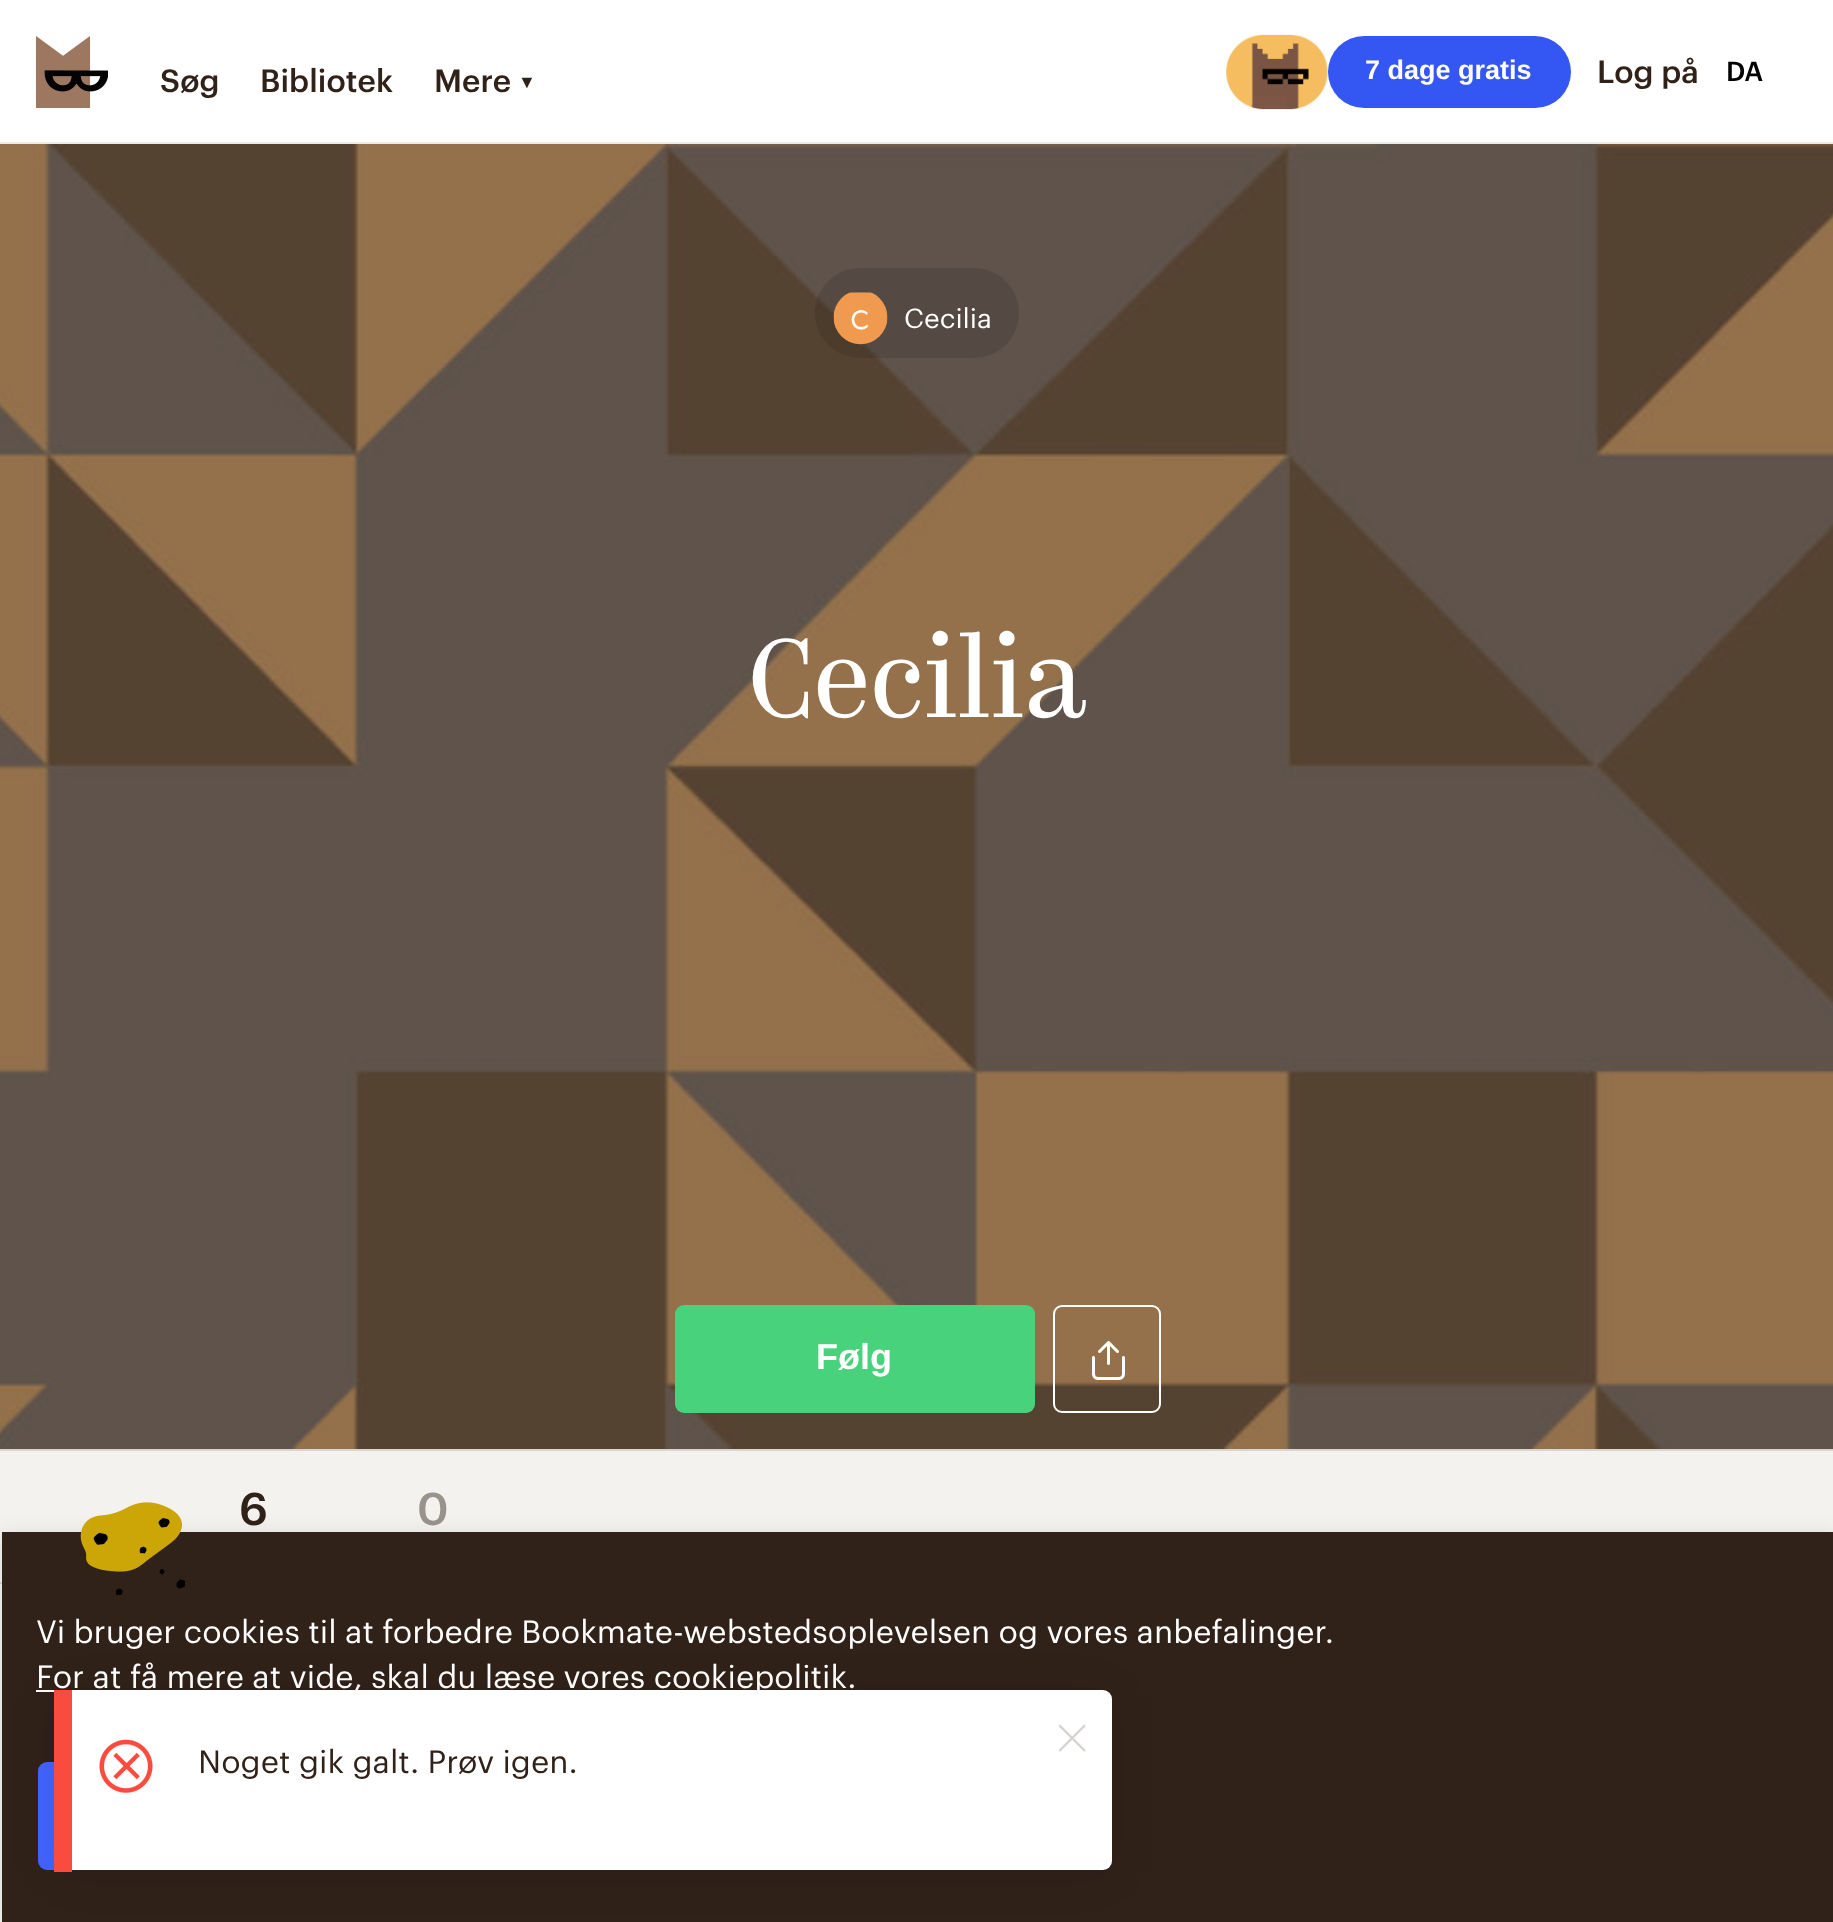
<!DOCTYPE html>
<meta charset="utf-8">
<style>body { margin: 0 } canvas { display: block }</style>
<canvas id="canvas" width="1833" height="1922"></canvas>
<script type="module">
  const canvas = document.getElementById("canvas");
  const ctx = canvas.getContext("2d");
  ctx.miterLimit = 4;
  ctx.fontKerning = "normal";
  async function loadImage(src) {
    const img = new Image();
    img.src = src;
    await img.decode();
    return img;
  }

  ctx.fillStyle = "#f4f2ef";
  ctx.fillRect(0, 0, 1833, 1922);
  ctx.fillStyle = "#ffffff";
  ctx.fillRect(0, 0, 1833, 142);
  ctx.fillStyle = "#eeebe7";
  ctx.fillRect(0, 142, 1833, 2);
  ctx.drawImage(await loadImage("img1.png"), 36, 36, 72, 72);
  ctx.font = "500 31.5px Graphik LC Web";
  ctx.fillStyle = "#302119";
  ctx.fillText("Søg", 160, 92);
  ctx.fillText("Bibliotek", 260, 92);
  ctx.fillText("Mere", 434, 92);
  ctx.font = "bold 18px Liberation Sans";
  ctx.fillText("▼", 518, 88);
  ctx.drawImage(await loadImage("img2.png"), 1226, 34, 102, 76);
  ctx.fillStyle = "#3456f3";
  ctx.beginPath();
  ctx.roundRect(1328, 36, 243, 72, 36);
  ctx.fill();
  ctx.font = "bold 27px Liberation Sans";
  ctx.fillStyle = "#ffffff";
  ctx.fillText("7 dage gratis", 1365, 79);
  ctx.font = "500 31.5px Graphik LC Web";
  ctx.fillStyle = "#302119";
  ctx.fillText("Log på", 1597, 83);
  ctx.font = "500 27px Graphik LC Web";
  ctx.fillStyle = "#000000";
  ctx.fillText("DA", 1726, 81);
  ctx.drawImage(await loadImage("img3.png"), 0, 144, 1833, 1305);
  ctx.fillStyle = "rgba(0, 0, 0, 0.1)";
  ctx.beginPath();
  ctx.roundRect(815, 268, 204, 90, 45);
  ctx.fill();
  ctx.drawImage(await loadImage("img4.png"), 833, 292, 55, 53);
  ctx.fillStyle = "rgba(0, 0, 0, 0.04)";
  ctx.beginPath();
  ctx.moveTo(860, 290);
  ctx.bezierCurveTo(857.5, 290, 855, 290.5, 852.5, 291);
  ctx.lineTo(867.5, 291);
  ctx.bezierCurveTo(865, 290.5, 862.5, 290, 860, 290);
  ctx.closePath();
  ctx.moveTo(886, 309.5);
  ctx.lineTo(886, 324.5);
  ctx.bezierCurveTo(887.5, 319.5, 887.5, 314.5, 886, 309.5);
  ctx.closePath();
  ctx.fill("evenodd");
  ctx.font = "27px Graphik LC Web";
  ctx.fillStyle = "#ffffff";
  ctx.fillText("Cecilia", 904, 328);
  ctx.font = "112.5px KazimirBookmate";
  ctx.fillText("Cecilia", 748, 717);
  ctx.fillStyle = "#48d27c";
  ctx.beginPath();
  ctx.roundRect(675, 1305, 360, 108, 9);
  ctx.fill();
  ctx.font = "bold 36px Liberation Sans";
  ctx.fillStyle = "#ffffff";
  ctx.fillText("Følg", 816, 1369);
  ctx.beginPath();
  ctx.roundRect(1054, 1306, 106, 106, 8);
  ctx.strokeStyle = "#ffffff";
  ctx.lineWidth = 2;
  ctx.stroke();
  ctx.drawImage(await loadImage("img5.png"), 1092, 1341, 33, 39);
  ctx.fillStyle = "#ddd6cf";
  ctx.fillRect(0, 1449, 1833, 2);
  ctx.fillRect(0, 1582, 2, 2);
  ctx.font = "500 45px Graphik LC Web";
  ctx.fillStyle = "#302119";
  ctx.fillText("6", 239, 1525);
  ctx.fillStyle = "#9a938d";
  ctx.fillText("0", 417, 1525);
  ctx.fillStyle = "rgba(0, 0, 0, 0.1)";
  ctx.filter = "blur(11px)";
  ctx.beginPath();
  ctx.rect(2, 1535, 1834, 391);
  ctx.fill();
  ctx.filter = "none";
  ctx.fillStyle = "#302119";
  ctx.fillRect(2, 1532, 1831, 390);
  ctx.drawImage(await loadImage("img6.png"), 80, 1502, 105, 93);
  ctx.font = "31.5px Graphik LC Web";
  ctx.fillStyle = "#ffffff";
  ctx.fillText("Vi bruger cookies til at forbedre Bookmate-webstedsoplevelsen og vores anbefalinger.", 36, 1643);
  ctx.fillRect(36, 1690, 18, 2);
  ctx.fillText("For at få mere at vide, skal du læse vores cookiepolitik.", 36, 1688);
  ctx.fillStyle = "#4264fd";
  ctx.beginPath();
  ctx.roundRect(38, 1762, 432, 108, 9);
  ctx.fill();
  ctx.fillStyle = "rgba(0, 0, 0, 0.07)";
  ctx.filter = "blur(22.5px)";
  ctx.beginPath();
  ctx.roundRect(54, 1694, 1058, 180, 9);
  ctx.fill();
  ctx.filter = "none";
  ctx.fillStyle = "#ffffff";
  ctx.beginPath();
  ctx.roundRect(54, 1690, 1058, 180, 9);
  ctx.fill();
  ctx.fillStyle = "#fa4c3e";
  ctx.fillRect(54, 1690, 18, 182);
  ctx.drawImage(await loadImage("img7.png"), 1058, 1724, 28, 28);
  ctx.drawImage(await loadImage("img8.png"), 99, 1739, 54, 54);
  ctx.fillStyle = "#302119";
  ctx.fillText("Noget gik galt. Prøv igen.", 198, 1773);
</script>
